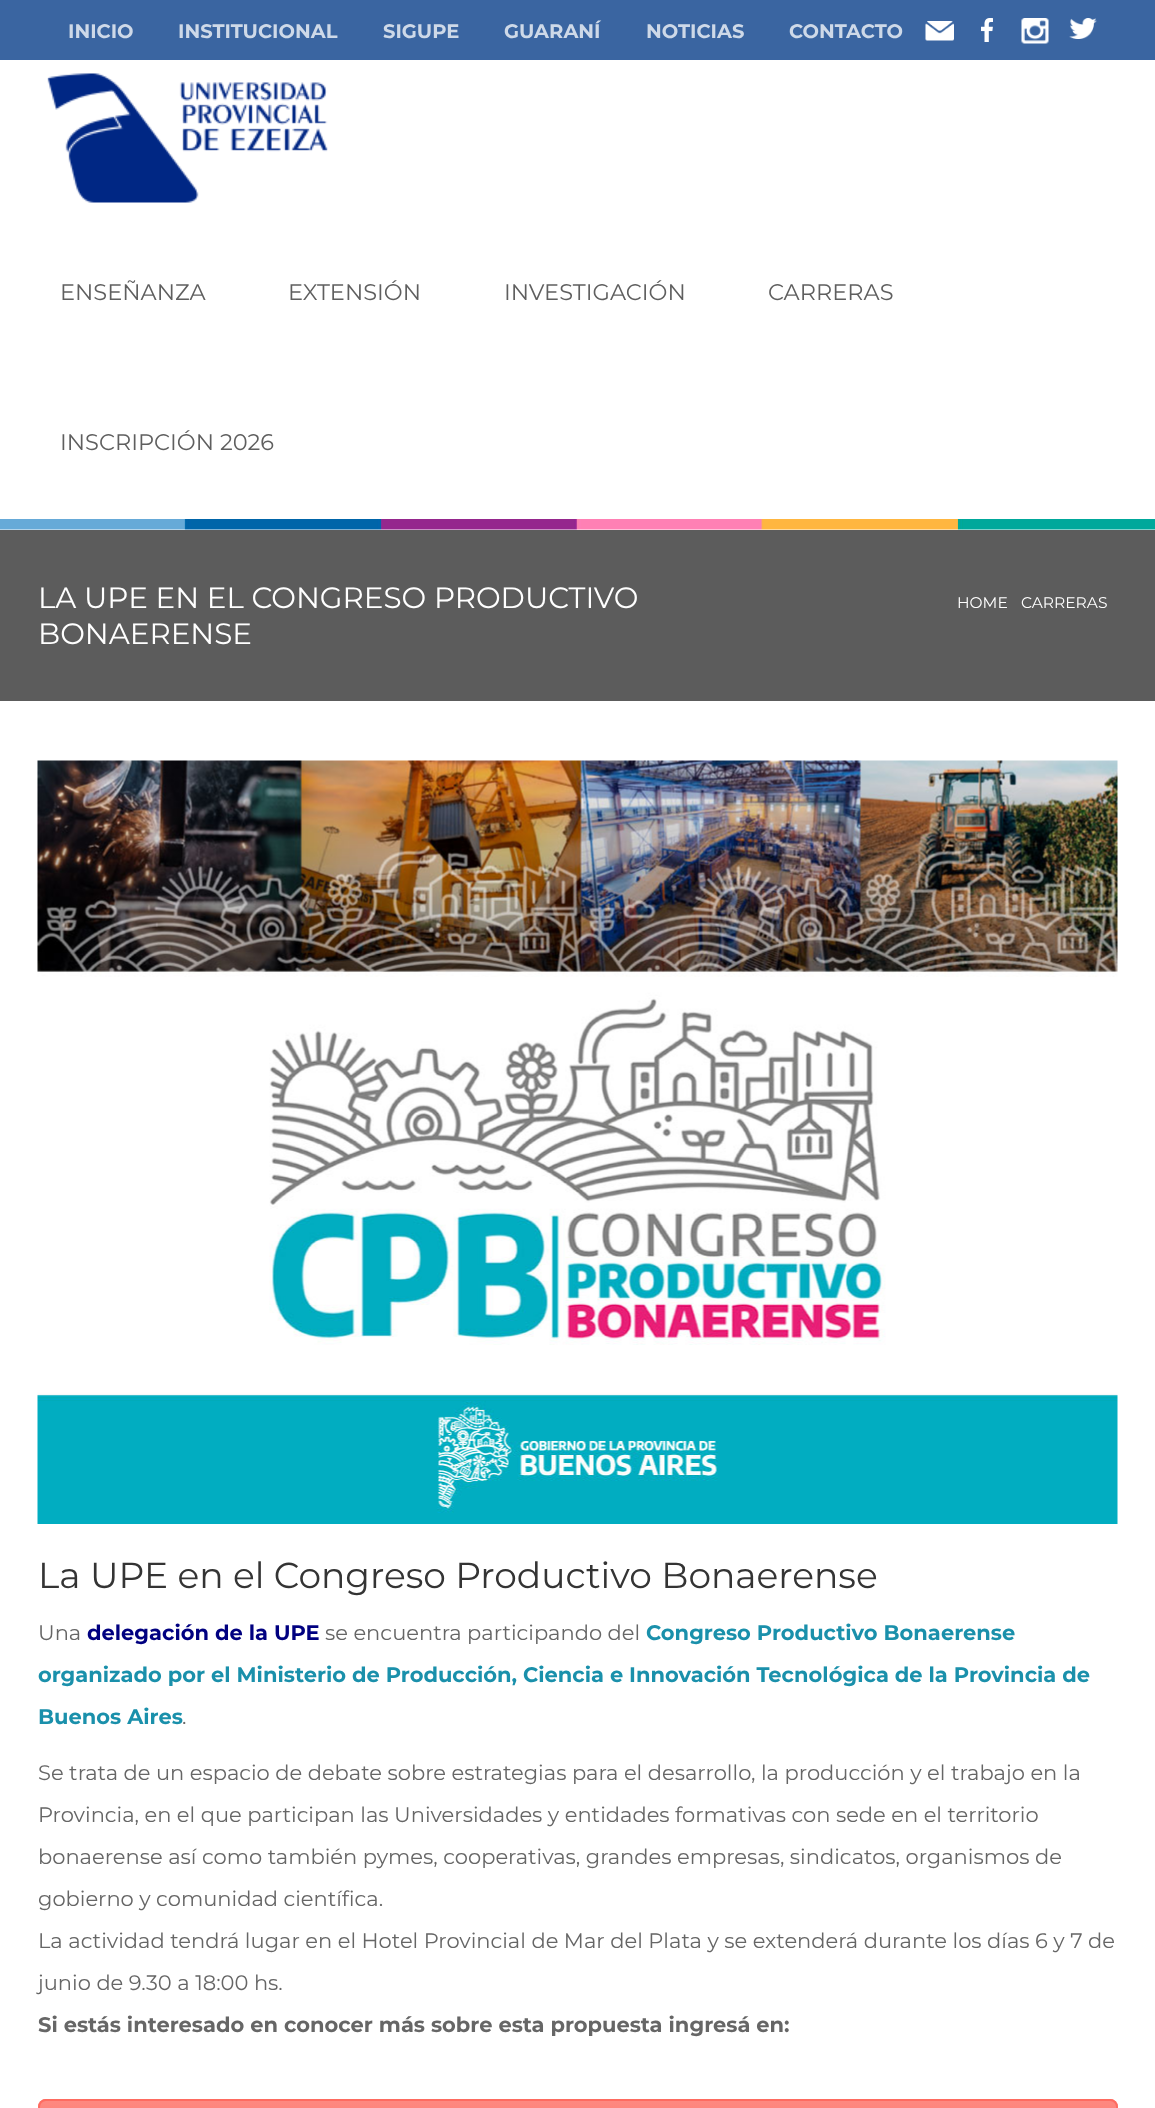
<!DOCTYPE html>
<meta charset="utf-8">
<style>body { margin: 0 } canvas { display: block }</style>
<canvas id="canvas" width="1155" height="2108"></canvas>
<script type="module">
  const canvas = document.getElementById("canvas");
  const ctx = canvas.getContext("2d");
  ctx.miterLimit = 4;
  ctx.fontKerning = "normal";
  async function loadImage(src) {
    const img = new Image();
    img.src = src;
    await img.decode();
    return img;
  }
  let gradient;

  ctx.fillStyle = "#ffffff";
  ctx.fillRect(0, 0, 1155, 2108);
  ctx.drawImage(await loadImage("img1.png"), 0, 519, 1155, 11);
  ctx.fillStyle = "#3a65a1";
  ctx.fillRect(0, 0, 1155, 60);
  ctx.font = "bold 19.5px Montserrat";
  ctx.fillStyle = "#ced9e8";
  ctx.fillText("INICIO", 68, 38);
  ctx.fillText("INSTITUCIONAL", 178, 38);
  ctx.fillText("SIGUPE", 383, 38);
  ctx.fillText("GUARANÍ", 504, 38);
  ctx.fillText("NOTICIAS", 646, 38);
  ctx.fillText("CONTACTO", 789, 38);
  ctx.drawImage(await loadImage("img2.png"), 925, 21, 29, 20);
  ctx.drawImage(await loadImage("img3.png"), 981, 18, 12, 24);
  ctx.drawImage(await loadImage("img4.png"), 1021, 18, 28, 26);
  ctx.drawImage(await loadImage("img5.png"), 1069, 18, 28, 21);
  ctx.drawImage(await loadImage("img6.png"), 47, 73, 281, 130);
  ctx.font = "22.5px Montserrat";
  ctx.fillStyle = "#5f5f5f";
  ctx.fillText("ENSEÑANZA", 60, 300);
  ctx.fillText("EXTENSIÓN", 288, 300);
  ctx.fillText("INVESTIGACIÓN", 504, 300);
  ctx.fillText("CARRERAS", 768, 300);
  ctx.fillText("INSCRIPCIÓN 2026", 60, 450);
  ctx.fillStyle = "#5c5c5c";
  ctx.fillRect(0, 530, 1155, 171);
  ctx.font = "29.4px Montserrat";
  ctx.fillStyle = "#ffffff";
  ctx.fillText("LA UPE EN EL CONGRESO PRODUCTIVO", 38, 608);
  ctx.fillText("BONAERENSE", 38, 644);
  ctx.font = "15.5px Montserrat";
  ctx.fillText("HOME", 957, 608);
  ctx.fillText("CARRERAS", 1021, 608);
  ctx.drawImage(await loadImage("img7.png"), 37, 760, 1081, 764);
  ctx.font = "36px Montserrat";
  ctx.fillStyle = "#343434";
  ctx.fillText("La UPE en el Congreso Productivo Bonaerense", 38, 1588);
  ctx.font = "21px Montserrat";
  ctx.fillStyle = "#666666";
  ctx.fillText("Una", 38, 1640);
  ctx.font = "bold 21px Montserrat";
  ctx.fillStyle = "#000080";
  ctx.fillText("delegación de la UPE", 87, 1640);
  ctx.font = "21px Montserrat";
  ctx.fillStyle = "#666666";
  ctx.fillText("se encuentra participando del", 325, 1640);
  ctx.font = "bold 21px Montserrat";
  ctx.fillStyle = "#1a90ab";
  ctx.fillText("Congreso Productivo Bonaerense", 646, 1640);
  ctx.fillText("organizado por el Ministerio de Producción, Ciencia e Innovación Tecnológica de la Provincia de", 38, 1682);
  ctx.fillText("Buenos Aires", 38, 1724);
  ctx.font = "21px Montserrat";
  ctx.fillStyle = "#666666";
  ctx.fillText(".", 182, 1724);
  ctx.fillText("Se trata de un espacio de debate sobre estrategias para el desarrollo, la producción y el trabajo en la", 38, 1780);
  ctx.fillText("Provincia, en el que participan las Universidades y entidades formativas con sede en el territorio", 38, 1822);
  ctx.fillText("bonaerense así como también pymes, cooperativas, grandes empresas, sindicatos, organismos de", 38, 1864);
  ctx.fillText("gobierno y comunidad científica.", 38, 1906);
  ctx.fillText("La actividad tendrá lugar en el Hotel Provincial de Mar del Plata y se extenderá durante los días 6 y 7 de", 38, 1948);
  ctx.fillText("junio de 9.30 a 18:00 hs.", 38, 1990);
  ctx.font = "bold 21px Montserrat";
  ctx.fillText("Si estás interesado en conocer más sobre esta propuesta ingresá en:", 38, 2032);
  ctx.fillStyle = "#fe6c61";
  ctx.beginPath();
  ctx.roundRect(38, 2099, 1080, 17, 8);
  ctx.fill();
  ctx.save();
  ctx.beginPath();
  ctx.roundRect(38, 2099, 1080, 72, 8);
  ctx.clip();
  gradient = ctx.createLinearGradient(578, 2100, 578, 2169);
  gradient.addColorStop(0, "rgba(255, 255, 255, 0.2)");
  gradient.addColorStop(1, "rgba(255, 255, 255, 0.01)");
  ctx.fillStyle = gradient;
  ctx.fillRect(38, 2100, 1080, 8);
  ctx.restore();
  ctx.beginPath();
  ctx.roundRect(39, 2100, 1078, 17, 7);
  ctx.strokeStyle = "#fe6c61";
  ctx.lineWidth = 2;
  ctx.stroke();
</script>
